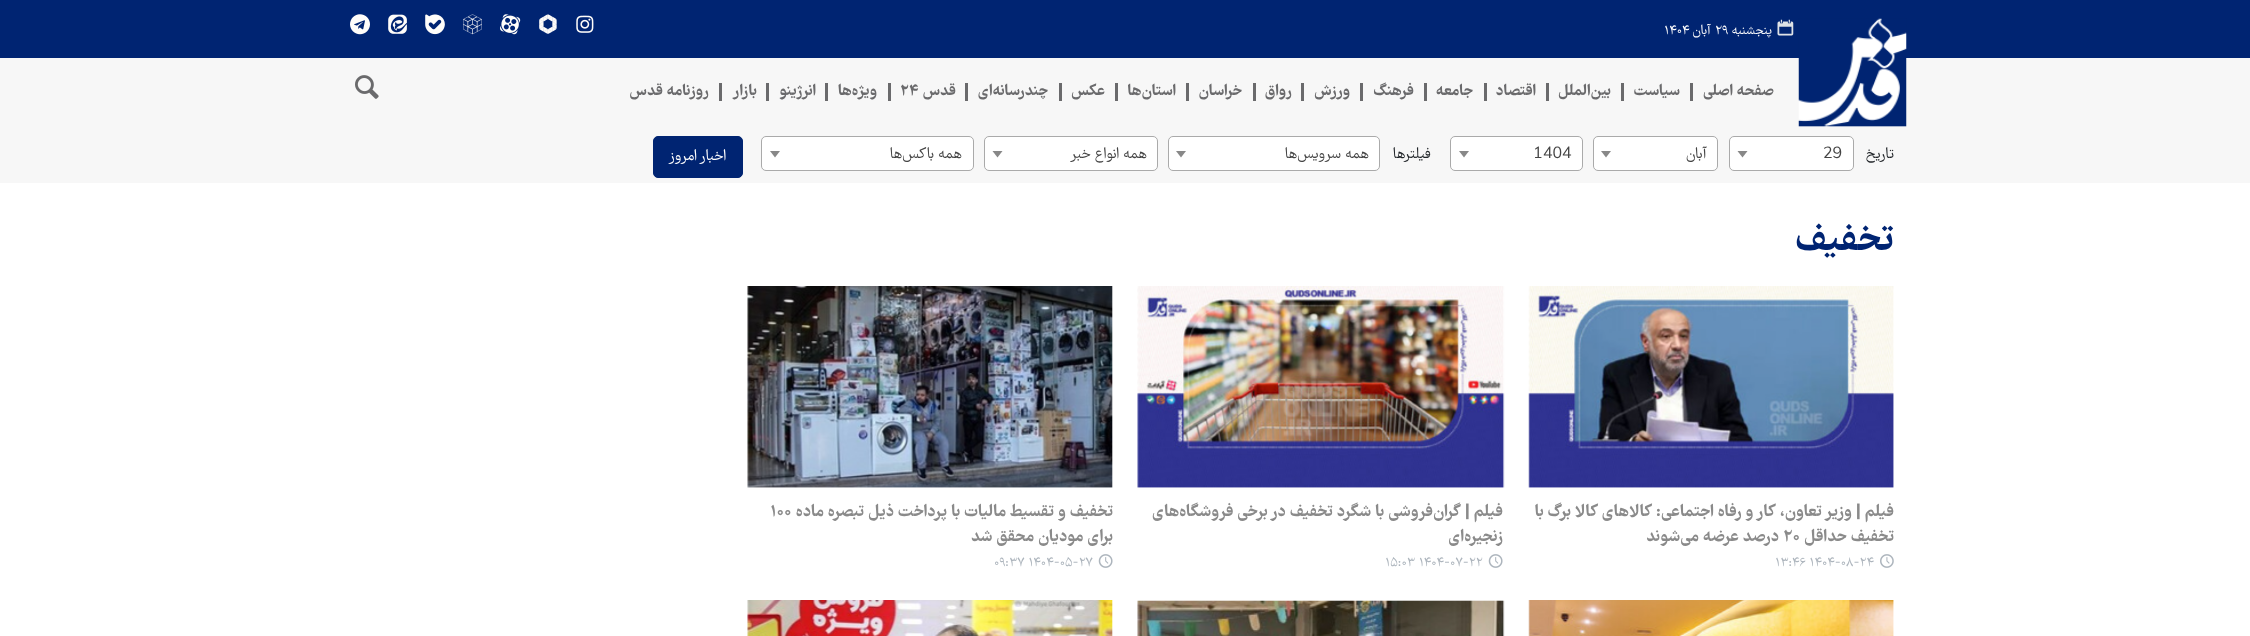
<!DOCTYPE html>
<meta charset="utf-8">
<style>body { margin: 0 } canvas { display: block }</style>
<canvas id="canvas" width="2250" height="636"></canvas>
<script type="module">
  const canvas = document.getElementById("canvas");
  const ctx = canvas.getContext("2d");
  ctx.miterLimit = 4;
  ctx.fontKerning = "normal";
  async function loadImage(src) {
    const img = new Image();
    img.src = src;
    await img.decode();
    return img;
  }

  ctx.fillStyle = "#ffffff";
  ctx.fillRect(0, 0, 2250, 636);
  ctx.fillStyle = "#002472";
  ctx.fillRect(0, 0, 2250, 58);
  ctx.drawImage(await loadImage("img1.png"), 1777, 19, 17, 17);
  ctx.direction = "rtl";
  ctx.font = "14px 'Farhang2'";
  ctx.fillStyle = "#ffffff";
  ctx.fillText("پنجشنبه", 1772, 34);
  ctx.direction = "ltr";
  ctx.fillText("۲۹", 1715, 34);
  ctx.direction = "rtl";
  ctx.fillText("آبان", 1711, 34);
  ctx.direction = "ltr";
  ctx.fillText("۱۴۰۴", 1664, 34);
  ctx.drawImage(await loadImage("img2.png"), 576, 15, 18, 18);
  ctx.drawImage(await loadImage("img3.png"), 539, 14, 18, 20);
  ctx.drawImage(await loadImage("img4.png"), 500, 14, 21, 21);
  ctx.drawImage(await loadImage("img5.png"), 463, 14, 19, 21);
  ctx.drawImage(await loadImage("img6.png"), 425, 14, 20, 21);
  ctx.drawImage(await loadImage("img7.png"), 388, 14, 19, 20);
  ctx.drawImage(await loadImage("img8.png"), 350, 14, 20, 21);
  ctx.fillStyle = "#f7f7f7";
  ctx.fillRect(0, 58, 2250, 68);
  ctx.fillRect(0, 126, 2250, 57);
  ctx.drawImage(await loadImage("img9.png"), 1798, 18, 109, 109);
  ctx.fillStyle = "#6a6a6c";
  ctx.fillRect(1690, 83, 3, 18);
  ctx.direction = "rtl";
  ctx.font = "bold 16.25px 'Farhang2'";
  ctx.fillText("صفحه اصلی", 1774, 95);
  ctx.fillRect(1621, 83, 3, 18);
  ctx.fillText("سیاست", 1680, 95);
  ctx.fillRect(1546, 83, 3, 18);
  ctx.fillText("بین‌الملل", 1611, 95);
  ctx.fillRect(1484, 83, 3, 18);
  ctx.fillText("اقتصاد", 1536, 95);
  ctx.fillRect(1424, 83, 3, 18);
  ctx.fillText("جامعه", 1473, 95);
  ctx.fillRect(1360, 83, 3, 18);
  ctx.fillText("فرهنگ", 1414, 95);
  ctx.fillRect(1301, 83, 3, 18);
  ctx.fillText("ورزش", 1350, 95);
  ctx.fillRect(1253, 83, 3, 18);
  ctx.fillText("رواق", 1292, 95);
  ctx.fillRect(1186, 83, 3, 18);
  ctx.fillText("خراسان", 1242, 95);
  ctx.fillRect(1115, 83, 3, 18);
  ctx.fillText("استان‌ها", 1176, 95);
  ctx.fillRect(1059, 83, 3, 18);
  ctx.fillText("عکس", 1105, 95);
  ctx.fillRect(965, 83, 3, 18);
  ctx.fillText("چندرسانه‌ای", 1048, 95);
  ctx.fillRect(888, 83, 3, 18);
  ctx.fillText("قدس", 956, 95);
  ctx.direction = "ltr";
  ctx.fillText("۲۴", 900, 95);
  ctx.fillRect(825, 83, 3, 18);
  ctx.direction = "rtl";
  ctx.fillText("ویژه‌ها", 877, 95);
  ctx.fillRect(766, 83, 3, 18);
  ctx.fillText("انرژینو", 816, 95);
  ctx.fillRect(719, 83, 3, 18);
  ctx.fillText("بازار", 757, 95);
  ctx.fillText("روزنامه قدس", 709, 95);
  ctx.drawImage(await loadImage("img10.png"), 355, 75, 24, 24);
  ctx.font = "16px 'Farhang2'";
  ctx.fillStyle = "#212529";
  ctx.fillText("تاریخ", 1894, 158);
  ctx.fillStyle = "#ffffff";
  ctx.beginPath();
  ctx.roundRect(1729.5, 136.5, 124, 34, 4.5);
  ctx.fill();
  ctx.strokeStyle = "#aaaaaa";
  ctx.stroke();
  ctx.direction = "ltr";
  ctx.fillStyle = "#444444";
  ctx.fillText("29", 1823, 158);
  ctx.fillStyle = "#888888";
  ctx.beginPath();
  ctx.moveTo(1737.5, 151);
  ctx.lineTo(1747.5, 151);
  ctx.lineTo(1742.5, 157.5);
  ctx.closePath();
  ctx.fill();
  ctx.fillStyle = "#ffffff";
  ctx.beginPath();
  ctx.roundRect(1593.5, 136.5, 124, 34, 4.5);
  ctx.fill();
  ctx.stroke();
  ctx.direction = "rtl";
  ctx.fillStyle = "#444444";
  ctx.fillText("آبان", 1707, 158);
  ctx.fillStyle = "#888888";
  ctx.beginPath();
  ctx.moveTo(1601, 151);
  ctx.lineTo(1611, 151);
  ctx.lineTo(1606, 157.5);
  ctx.closePath();
  ctx.fill();
  ctx.fillStyle = "#ffffff";
  ctx.beginPath();
  ctx.roundRect(1450.5, 136.5, 132, 34, 4.5);
  ctx.fill();
  ctx.stroke();
  ctx.direction = "ltr";
  ctx.fillStyle = "#444444";
  ctx.fillText("1404", 1533, 158);
  ctx.fillStyle = "#888888";
  ctx.beginPath();
  ctx.moveTo(1459, 151);
  ctx.lineTo(1469, 151);
  ctx.lineTo(1464, 157.5);
  ctx.closePath();
  ctx.fill();
  ctx.direction = "rtl";
  ctx.fillStyle = "#212529";
  ctx.fillText("فیلترها", 1431, 158);
  ctx.fillStyle = "#ffffff";
  ctx.beginPath();
  ctx.roundRect(1168.5, 136.5, 211, 34, 4.5);
  ctx.fill();
  ctx.stroke();
  ctx.fillStyle = "#444444";
  ctx.fillText("همه سرویس‌ها", 1369, 158);
  ctx.fillStyle = "#888888";
  ctx.beginPath();
  ctx.moveTo(1176, 151);
  ctx.lineTo(1186, 151);
  ctx.lineTo(1181, 157.5);
  ctx.closePath();
  ctx.fill();
  ctx.fillStyle = "#ffffff";
  ctx.beginPath();
  ctx.roundRect(984.5, 136.5, 173, 34, 4.5);
  ctx.fill();
  ctx.stroke();
  ctx.fillStyle = "#444444";
  ctx.fillText("همه انواع خبر", 1147, 158);
  ctx.fillStyle = "#888888";
  ctx.beginPath();
  ctx.moveTo(992.5, 151);
  ctx.lineTo(1002.5, 151);
  ctx.lineTo(997.5, 157.5);
  ctx.closePath();
  ctx.fill();
  ctx.fillStyle = "#ffffff";
  ctx.beginPath();
  ctx.roundRect(761.5, 136.5, 212, 34, 4.5);
  ctx.fill();
  ctx.stroke();
  ctx.fillStyle = "#444444";
  ctx.fillText("همه باکس‌ها", 962, 158);
  ctx.fillStyle = "#888888";
  ctx.beginPath();
  ctx.moveTo(770, 151);
  ctx.lineTo(780, 151);
  ctx.lineTo(775, 157.5);
  ctx.closePath();
  ctx.fill();
  ctx.fillStyle = "#002472";
  ctx.beginPath();
  ctx.roundRect(653.5, 136.5, 89, 41, 4.5);
  ctx.fill();
  ctx.strokeStyle = "#002472";
  ctx.stroke();
  ctx.fillStyle = "#ffffff";
  ctx.fillText("اخبار امروز", 726, 160);
  ctx.font = "bold 40px 'Farhang2'";
  ctx.fillStyle = "#002472";
  ctx.fillText("تخفیف", 1894, 250);
  ctx.drawImage(await loadImage("img11.png"), 1528, 286, 366, 202);
  ctx.font = "bold 17.5px 'Farhang2'";
  ctx.fillStyle = "#8a8a8a";
  ctx.fillText("فیلم | وزیر تعاون، کار و رفاه اجتماعی: کالاهای کالا برگ با", 1894, 516);
  ctx.fillText("تخفیف حداقل", 1894, 541);
  ctx.direction = "ltr";
  ctx.fillText("۲۰", 1783, 541);
  ctx.direction = "rtl";
  ctx.fillText("درصد عرضه می‌شوند", 1779, 541);
  ctx.drawImage(await loadImage("img12.png"), 1880, 554, 14, 14);
  ctx.direction = "ltr";
  ctx.font = "14px 'Farhang2'";
  ctx.fillStyle = "#adb5bd";
  ctx.fillText("۱۳:۴۶ ۱۴۰۴-۰۸-۲۴", 1775, 566);
  ctx.drawImage(await loadImage("img13.png"), 1137, 286, 368, 202);
  ctx.direction = "rtl";
  ctx.font = "bold 17.5px 'Farhang2'";
  ctx.fillStyle = "#8a8a8a";
  ctx.fillText("فیلم | گران‌فروشی با شگرد تخفیف در برخی فروشگاه‌های", 1503, 516);
  ctx.fillText("زنجیره‌ای", 1503, 541);
  ctx.drawImage(await loadImage("img14.png"), 1488, 554, 15, 14);
  ctx.direction = "ltr";
  ctx.font = "14px 'Farhang2'";
  ctx.fillStyle = "#adb5bd";
  ctx.fillText("۱۵:۰۳ ۱۴۰۴-۰۷-۲۲", 1385, 566);
  ctx.drawImage(await loadImage("img15.png"), 747, 286, 366, 202);
  ctx.direction = "rtl";
  ctx.font = "bold 17.5px 'Farhang2'";
  ctx.fillStyle = "#8a8a8a";
  ctx.fillText("تخفیف و تقسیط مالیات با پرداخت ذیل تبصره ماده", 1113, 516);
  ctx.direction = "ltr";
  ctx.fillText("۱۰۰", 770, 516);
  ctx.direction = "rtl";
  ctx.fillText("برای مودیان محقق شد", 1113, 541);
  ctx.drawImage(await loadImage("img14.png"), 1098, 554, 15, 14);
  ctx.direction = "ltr";
  ctx.font = "14px 'Farhang2'";
  ctx.fillStyle = "#adb5bd";
  ctx.fillText("۰۹:۳۷ ۱۴۰۴-۰۵-۲۷", 994, 566);
  ctx.drawImage(await loadImage("img16.png"), 1528, 600, 366, 36);
  ctx.drawImage(await loadImage("img17.png"), 1137, 600, 368, 36);
  ctx.drawImage(await loadImage("img18.png"), 747, 600, 366, 36);
</script>
